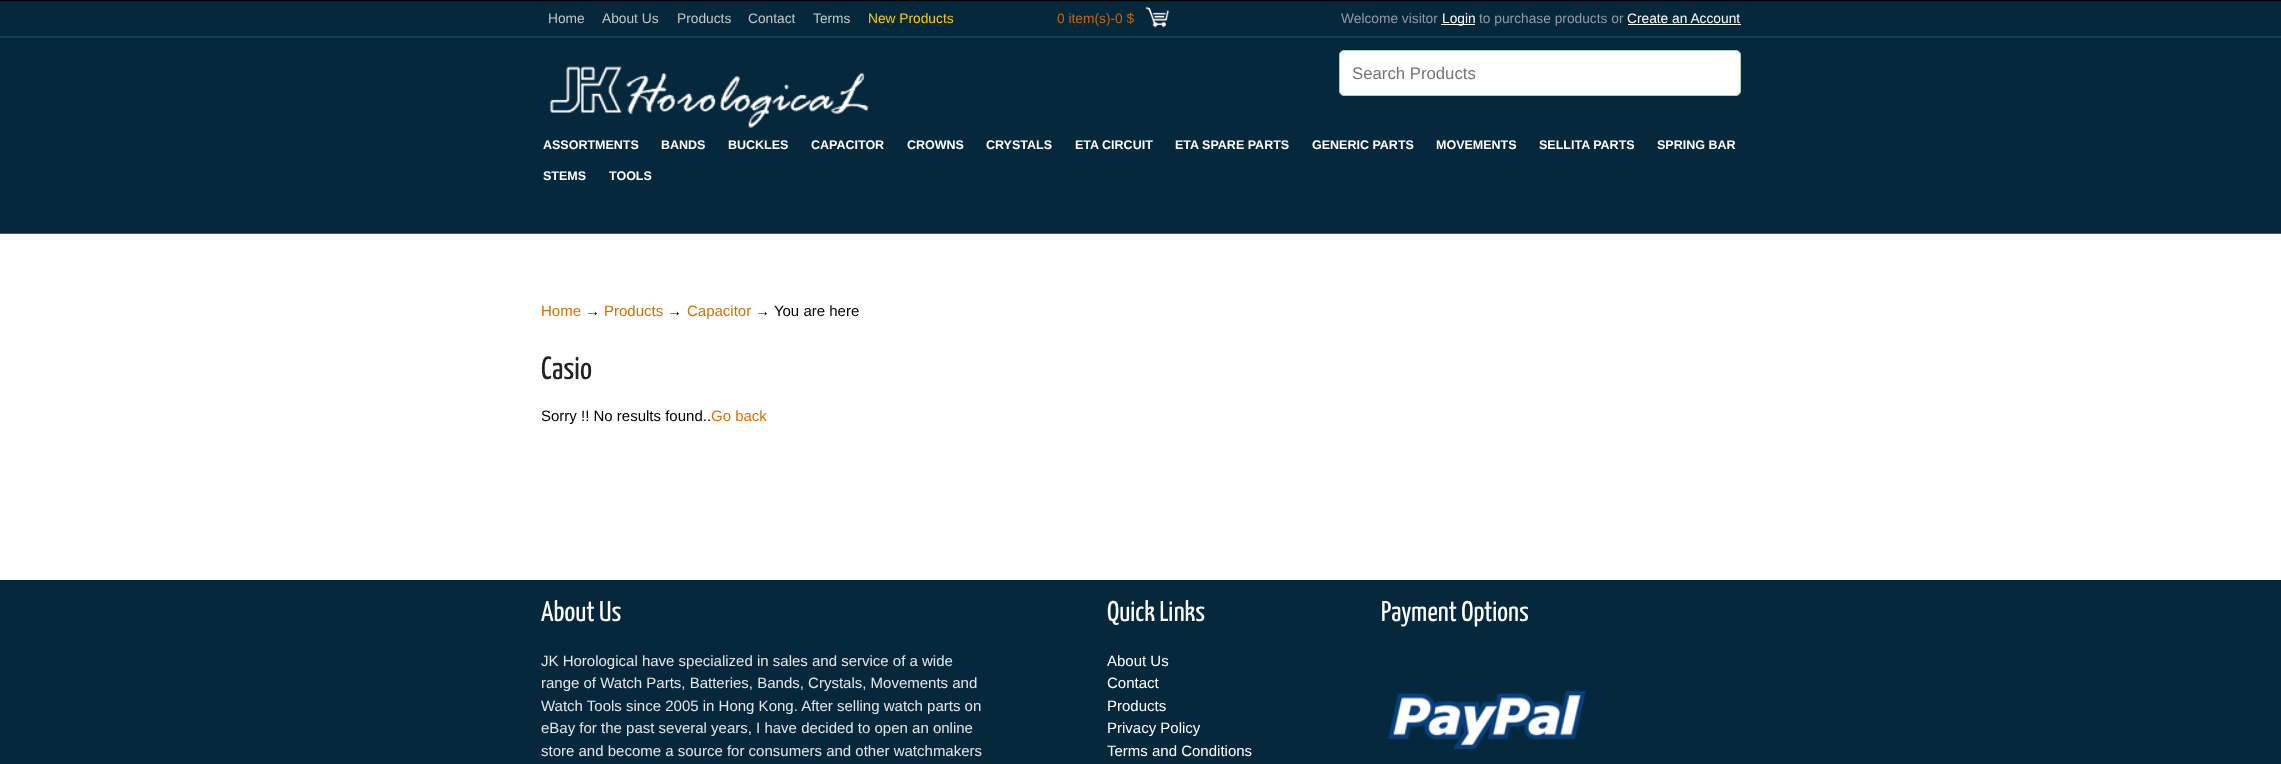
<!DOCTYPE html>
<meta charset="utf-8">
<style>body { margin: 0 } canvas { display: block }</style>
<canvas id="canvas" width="2281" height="764"></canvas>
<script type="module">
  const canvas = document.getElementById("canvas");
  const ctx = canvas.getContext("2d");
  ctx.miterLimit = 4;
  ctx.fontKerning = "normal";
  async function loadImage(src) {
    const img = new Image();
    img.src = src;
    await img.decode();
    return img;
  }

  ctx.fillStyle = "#ffffff";
  ctx.fillRect(0, 0, 2281, 764);
  ctx.drawImage(await loadImage("img1.png"), 0, 0, 2281, 234);
  ctx.font = "13.75px Liberation Sans";
  ctx.fillStyle = "#c4c9c5";
  ctx.fillText("Home", 548, 23);
  ctx.fillText("About Us", 602, 23);
  ctx.fillText("Products", 677, 23);
  ctx.fillText("Contact", 748, 23);
  ctx.fillText("Terms", 813, 23);
  ctx.fillStyle = "#ffcc00";
  ctx.fillText("New Products", 868, 23);
  ctx.fillStyle = "#cc6600";
  ctx.fillText("0 item(s)-0 $", 1057, 23);
  ctx.drawImage(await loadImage("img2.png"), 1145, 6, 25, 22);
  ctx.fillStyle = "#9798aa";
  ctx.fillText("Welcome visitor", 1341, 23);
  ctx.fillStyle = "#ffffff";
  ctx.fillRect(1441, 24, 34, 1);
  ctx.fillText("Login", 1442, 23);
  ctx.fillStyle = "#9798aa";
  ctx.fillText("to purchase products or", 1479, 23);
  ctx.fillStyle = "#ffffff";
  ctx.fillText("Create an Account", 1627, 23);
  ctx.fillRect(1628, 24, 113, 1);
  ctx.drawImage(await loadImage("img3.png"), 549, 66, 320, 62);
  ctx.beginPath();
  ctx.roundRect(1339.5, 50.5, 401, 45, 4.5);
  ctx.fill();
  ctx.strokeStyle = "#a8d4b1";
  ctx.stroke();
  ctx.font = "16.75px Liberation Sans";
  ctx.fillStyle = "#757575";
  ctx.fillText("Search Products", 1352, 79);
  ctx.font = "bold 12.5px Liberation Sans";
  ctx.fillStyle = "#ffffff";
  ctx.fillText("ASSORTMENTS", 543, 149);
  ctx.fillText("BANDS", 661, 149);
  ctx.fillText("BUCKLES", 728, 149);
  ctx.fillText("CAPACITOR", 811, 149);
  ctx.fillText("CROWNS", 907, 149);
  ctx.fillText("CRYSTALS", 986, 149);
  ctx.fillText("ETA CIRCUIT", 1075, 149);
  ctx.fillText("ETA SPARE PARTS", 1175, 149);
  ctx.fillText("GENERIC PARTS", 1312, 149);
  ctx.fillText("MOVEMENTS", 1436, 149);
  ctx.fillText("SELLITA PARTS", 1539, 149);
  ctx.fillText("SPRING BAR", 1657, 149);
  ctx.fillText("STEMS", 543, 180);
  ctx.fillText("TOOLS", 609, 180);
  ctx.font = "15px Liberation Sans";
  ctx.fillStyle = "#d77002";
  ctx.fillText("Home", 541, 316);
  ctx.fillStyle = "#000000";
  ctx.fillText("→", 585, 316);
  ctx.fillStyle = "#d77002";
  ctx.fillText("Products", 604, 316);
  ctx.fillStyle = "#000000";
  ctx.fillText("→", 667, 316);
  ctx.fillStyle = "#d77002";
  ctx.fillText("Capacitor", 687, 316);
  ctx.fillStyle = "#000000";
  ctx.fillText("→ You are here", 755, 316);
  ctx.font = "32px Yanone Kaffeesatz";
  ctx.fillStyle = "#232221";
  ctx.fillText("Casio", 541, 379);
  ctx.font = "15px Liberation Sans";
  ctx.fillStyle = "#000000";
  ctx.fillText("Sorry !! No results found..", 541, 421);
  ctx.fillStyle = "#d77002";
  ctx.fillText("Go back", 711, 421);
  ctx.fillStyle = "#05283c";
  ctx.fillRect(0, 580, 2281, 184);
  ctx.font = "28.5px Yanone Kaffeesatz";
  ctx.fillStyle = "#ffffff";
  ctx.fillText("About Us", 541, 621);
  ctx.font = "15px Liberation Sans";
  ctx.fillStyle = "#e6e6e6";
  ctx.fillText("JK Horological have specialized in sales and service of a wide", 541, 666);
  ctx.fillText("range of Watch Parts, Batteries, Bands, Crystals, Movements and", 541, 688);
  ctx.fillText("Watch Tools since 2005 in Hong Kong. After selling watch parts on", 541, 711);
  ctx.fillText("eBay for the past several years, I have decided to open an online", 541, 733);
  ctx.fillText("store and become a source for consumers and other watchmakers", 541, 756);
  ctx.font = "28.5px Yanone Kaffeesatz";
  ctx.fillStyle = "#ffffff";
  ctx.fillText("Quick Links", 1107, 621);
  ctx.font = "15px Liberation Sans";
  ctx.fillText("About Us", 1107, 666);
  ctx.fillText("Contact", 1107, 688);
  ctx.fillText("Products", 1107, 711);
  ctx.fillText("Privacy Policy", 1107, 733);
  ctx.fillText("Terms and Conditions", 1107, 756);
  ctx.font = "28.5px Yanone Kaffeesatz";
  ctx.fillText("Payment Options", 1381, 621);
  ctx.drawImage(await loadImage("img4.png"), 1387, 690, 200, 60);
</script>
